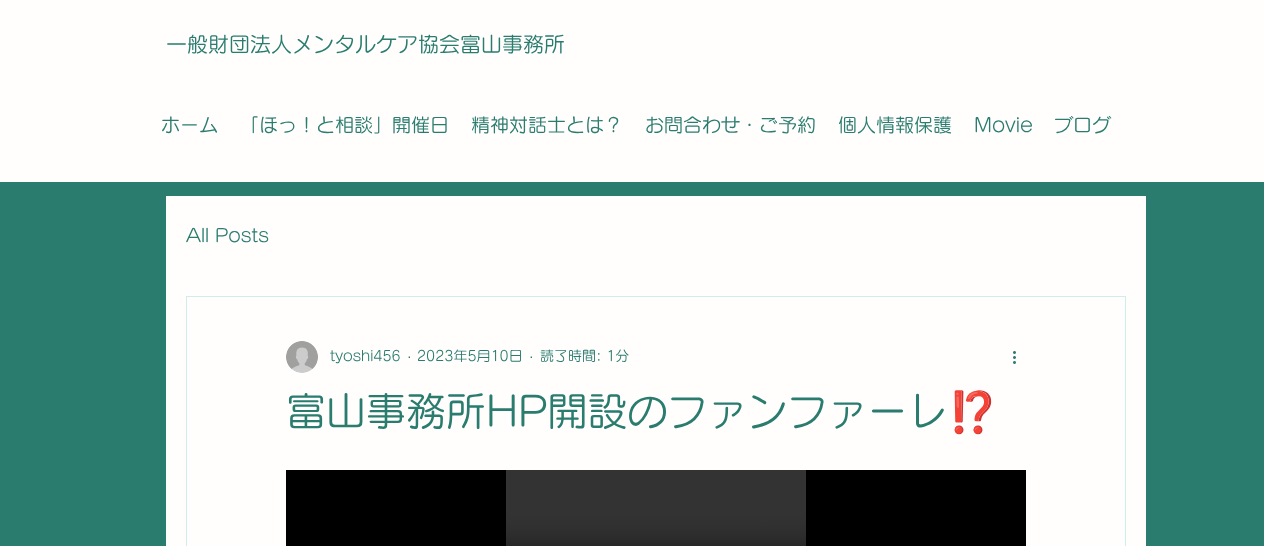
<!DOCTYPE html>
<meta charset="utf-8">
<style>body { margin: 0 } canvas { display: block }</style>
<canvas id="canvas" width="1264" height="546"></canvas>
<script type="module">
  const canvas = document.getElementById("canvas");
  const ctx = canvas.getContext("2d");
  ctx.miterLimit = 4;
  ctx.fontKerning = "normal";
  async function loadImage(src) {
    const img = new Image();
    img.src = src;
    await img.decode();
    return img;
  }

  ctx.fillStyle = "#fffefc";
  ctx.fillRect(0, 0, 1264, 546);
  ctx.font = "500 21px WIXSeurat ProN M";
  ctx.fillStyle = "#2a7c6f";
  ctx.fillText("一般財団法人メンタルケア協会富山事務所", 166, 52);
  ctx.font = "500 19px WIXSeurat ProN M";
  ctx.fillText("ホーム", 161, 132);
  ctx.fillText("「ほっ！と相談」開催日", 240, 132);
  ctx.fillText("精神対話士とは？", 471, 132);
  ctx.fillText("お問合わせ・ご予約", 645, 132);
  ctx.fillText("個人情報保護", 838, 132);
  ctx.fillText("Movie", 974, 132);
  ctx.fillText("ブログ", 1054, 132);
  ctx.fillRect(0, 182, 1264, 364);
  ctx.fillStyle = "#fffefc";
  ctx.fillRect(166, 196, 980, 350);
  ctx.font = "500 18px WIXSeurat ProN M";
  ctx.fillStyle = "#2a7c6f";
  ctx.fillText("All Posts", 186, 242);
  ctx.strokeStyle = "#ceeee9";
  ctx.strokeRect(186.5, 296.5, 939, 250);
  ctx.drawImage(await loadImage("img1.png"), 286, 341, 32, 32);
  ctx.font = "500 14px WIXSeurat ProN M";
  ctx.fillText("tyoshi456", 330, 361);
  ctx.font = "14px Liberation Sans";
  ctx.fillText("·", 407, 361);
  ctx.font = "500 14px WIXSeurat ProN M";
  ctx.fillText("2023年5月10日", 417, 361);
  ctx.font = "14px Liberation Sans";
  ctx.fillText("·", 529, 361);
  ctx.font = "500 14px WIXSeurat ProN M";
  ctx.fillText("読了時間: 1分", 540, 361);
  ctx.drawImage(await loadImage("img2.png"), 1013, 351, 3, 13);
  ctx.font = "500 40px WIXSeurat ProN M";
  ctx.fillText("富山事務所HP開設のファンファーレ", 286, 426);
  ctx.font = "40px Noto Color Emoji";
  ctx.fillText("⁉️", 948, 426);
  ctx.drawImage(await loadImage("img3.png"), 286, 470, 740, 76);
</script>
